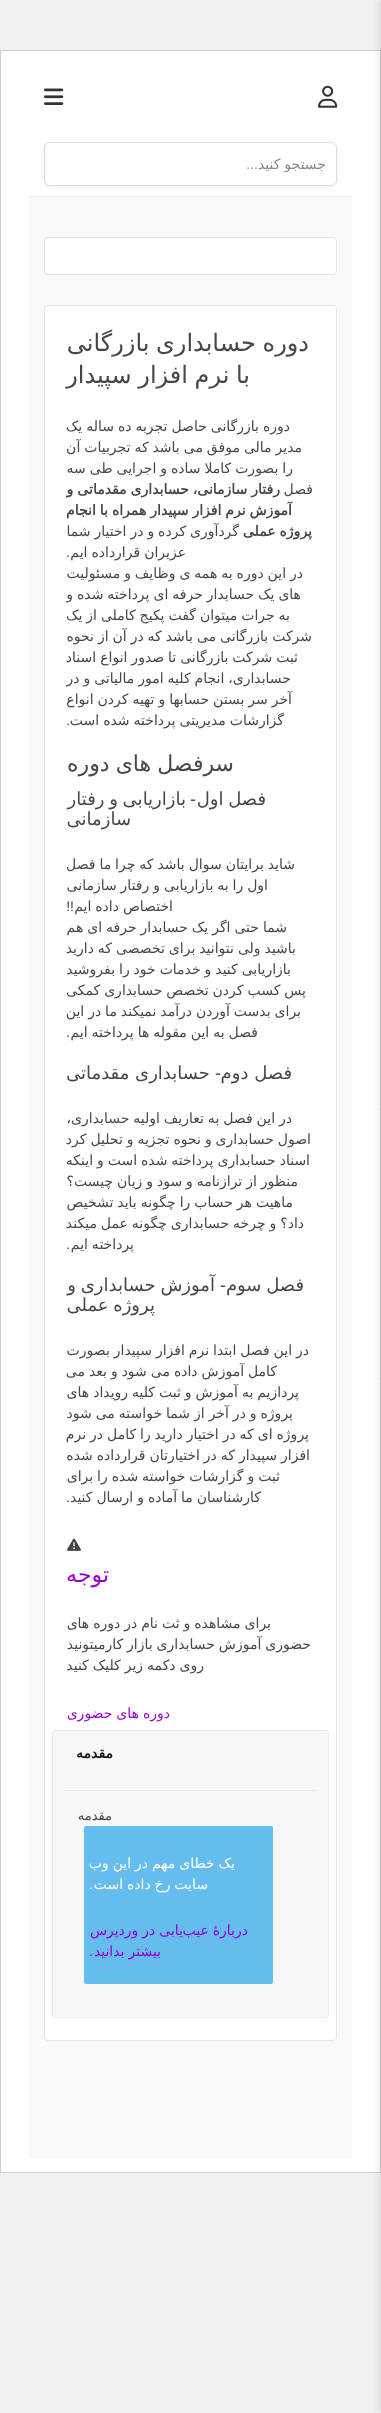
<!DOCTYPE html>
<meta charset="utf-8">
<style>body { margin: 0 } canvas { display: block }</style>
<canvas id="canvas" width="381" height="2413"></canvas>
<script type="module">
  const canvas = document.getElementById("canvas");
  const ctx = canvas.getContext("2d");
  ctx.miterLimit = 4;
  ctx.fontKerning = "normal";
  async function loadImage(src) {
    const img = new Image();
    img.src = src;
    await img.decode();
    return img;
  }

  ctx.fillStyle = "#f1f1f1";
  ctx.fillRect(0, 0, 381, 2413);
  ctx.fillStyle = "#ffffff";
  ctx.beginPath();
  ctx.rect(0.5, 50.5, 380, 2122);
  ctx.fill();
  ctx.strokeStyle = "#ccd0d4";
  ctx.stroke();
  ctx.fillStyle = "rgba(0, 0, 0, 0.1)";
  ctx.filter = "blur(3px)";
  ctx.beginPath();
  ctx.rect(379, 0, 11, 2413);
  ctx.fill();
  ctx.filter = "none";
  ctx.fillStyle = "#eeeeee";
  ctx.fillRect(29, 196, 323, 1);
  ctx.drawImage(await loadImage("img1.png"), 318, 85, 20, 23);
  ctx.drawImage(await loadImage("img2.png"), 44, 88, 20, 17);
  ctx.fillStyle = "rgba(0, 0, 0, 0.06)";
  ctx.filter = "blur(1.5px)";
  ctx.beginPath();
  ctx.roundRect(44, 143, 293, 44, 6);
  ctx.fill();
  ctx.filter = "none";
  ctx.fillStyle = "#ffffff";
  ctx.beginPath();
  ctx.roundRect(44.5, 142.5, 292, 43, 5.5);
  ctx.fill();
  ctx.strokeStyle = "#dddddd";
  ctx.stroke();
  ctx.save();
  ctx.beginPath();
  ctx.rect(55, 156, 271, 16);
  ctx.clip();
  ctx.wordSpacing = "-0.5px";
  ctx.direction = "rtl";
  ctx.font = "14px DejaVu Sans";
  ctx.fillStyle = "#888888";
  ctx.fillText("جستجو کنید", 326, 169);
  ctx.restore();
  ctx.direction = "rtl";
  ctx.font = "14px Liberation Sans";
  ctx.fillStyle = "#888888";
  ctx.fillText("...", 258, 169);
  ctx.fillStyle = "#f8f9fa";
  ctx.fillRect(29, 197, 323, 1961);
  ctx.fillStyle = "#ffffff";
  ctx.beginPath();
  ctx.roundRect(44.5, 237.5, 292, 37, 3.5);
  ctx.fill();
  ctx.strokeStyle = "#e5e5e5";
  ctx.stroke();
  ctx.beginPath();
  ctx.roundRect(44.5, 305.5, 292, 1735, 3.5);
  ctx.fill();
  ctx.stroke();
  ctx.wordSpacing = "-1px";
  ctx.font = "24px DejaVu Sans";
  ctx.fillStyle = "#464749";
  ctx.fillText("دوره حسابداری بازرگانی", 309, 351);
  ctx.fillText("با نرم افزار سپیدار", 250, 383);
  ctx.wordSpacing = "-0.5px";
  ctx.font = "14px DejaVu Sans";
  ctx.fillText("دوره بازرگانی حاصل تجربه ده ساله یک", 290, 431);
  ctx.fillText("مدیر مالی موفق می باشد که تجربیات آن", 302, 452);
  ctx.fillText("را بصورت کاملا ساده و اجرایی طی سه", 293, 473);
  ctx.wordSpacing = "0px";
  ctx.fillText("فصل", 313, 494);
  ctx.wordSpacing = "-0.5px";
  ctx.font = "bold 14px DejaVu Sans";
  ctx.fillText("رفتار سازمانی، حسابداری مقدماتی و", 280, 494);
  ctx.fillText("آموزش نرم افزار سپیدار همراه با انجام", 292, 515);
  ctx.fillText("پروژه عملی", 312, 536);
  ctx.font = "14px DejaVu Sans";
  ctx.fillText("گردآوری کرده و در اختیار شما", 239, 536);
  ctx.fillText("عزیران قرارداده ایم", 186, 557);
  ctx.wordSpacing = "0px";
  ctx.font = "14px Liberation Sans";
  ctx.fillText(".", 70, 557);
  ctx.wordSpacing = "-0.5px";
  ctx.font = "14px DejaVu Sans";
  ctx.fillText("در این دوره به همه ی وظایف و مسئولیت", 303, 578);
  ctx.fillText("های یک حسابدار حرفه ای پرداخته شده و", 301, 599);
  ctx.fillText("به جرات میتوان گفت پکیج کاملی از یک", 290, 620);
  ctx.fillText("شرکت بازرگانی می باشد که در آن از نحوه", 312, 641);
  ctx.fillText("ثبت شرکت بازرگانی تا صدور انواع اسناد", 298, 662);
  ctx.fillText("حسابداری، انجام کلیه امور مالیاتی و در", 291, 683);
  ctx.fillText("آخر سر بستن حسابها و تهیه کردن انواع", 292, 704);
  ctx.fillText("گزارشات مدیریتی پرداخته شده است", 284, 725);
  ctx.wordSpacing = "0px";
  ctx.font = "14px Liberation Sans";
  ctx.fillText(".", 70, 725);
  ctx.wordSpacing = "-1px";
  ctx.font = "22px DejaVu Sans";
  ctx.fillText("سرفصل های دوره", 234, 771);
  ctx.font = "18px DejaVu Sans";
  ctx.fillText("فصل اول", 266, 805);
  ctx.wordSpacing = "0px";
  ctx.font = "18px Liberation Sans";
  ctx.fillText("-", 196, 805);
  ctx.wordSpacing = "-1px";
  ctx.font = "18px DejaVu Sans";
  ctx.fillText("بازاریابی و رفتار", 186, 805);
  ctx.wordSpacing = "0px";
  ctx.fillText("سازمانی", 131, 825);
  ctx.wordSpacing = "-0.5px";
  ctx.font = "14px DejaVu Sans";
  ctx.fillText("شاید برایتان سوال باشد که چرا ما فصل", 295, 869);
  ctx.fillText("اول را به بازاریابی و رفتار سازمانی", 268, 890);
  ctx.fillText("اختصاص داده ایم", 173, 911);
  ctx.wordSpacing = "0px";
  ctx.font = "14px Liberation Sans";
  ctx.fillText("!!", 74, 911);
  ctx.wordSpacing = "-0.5px";
  ctx.font = "14px DejaVu Sans";
  ctx.fillText("شما حتی اگر یک حسابدار حرفه ای هم", 287, 932);
  ctx.fillText("باشید ولی نتوانید برای تخصصی که دارید", 296, 953);
  ctx.fillText("بازاریابی کنید و خدمات خود را بفروشید", 291, 974);
  ctx.fillText("پس کسب کردن تخصص حسابداری کمکی", 306, 995);
  ctx.fillText("برای بدست آوردن درآمد نمیکند ما در این", 301, 1016);
  ctx.fillText("فصل به این مقوله ها پرداخته ایم", 258, 1037);
  ctx.wordSpacing = "0px";
  ctx.font = "14px Liberation Sans";
  ctx.fillText(".", 70, 1037);
  ctx.font = "18px DejaVu Sans";
  ctx.fillText("فصل دوم", 292, 1079);
  ctx.font = "18px Liberation Sans";
  ctx.fillText("-", 221, 1079);
  ctx.font = "18px DejaVu Sans";
  ctx.fillText("حسابداری مقدماتی", 210, 1079);
  ctx.wordSpacing = "-0.5px";
  ctx.font = "14px DejaVu Sans";
  ctx.fillText("در این فصل به تعاریف اولیه حسابداری،", 292, 1123);
  ctx.fillText("اصول حسابداری و نحوه تجزیه و تحلیل کرد", 311, 1144);
  ctx.fillText("اسناد حسابداری پرداخته شده است و اینکه", 310, 1165);
  ctx.fillText("منظور از ترازنامه و سود و زیان چیست؟", 298, 1186);
  ctx.fillText("ماهیت هر حساب را چگونه باید تشخیص", 293, 1207);
  ctx.fillText("داد؟ و چرخه حسابداری چگونه عمل میکند", 304, 1228);
  ctx.fillText("پرداخته ایم", 134, 1249);
  ctx.wordSpacing = "0px";
  ctx.font = "14px Liberation Sans";
  ctx.fillText(".", 70, 1249);
  ctx.wordSpacing = "-1px";
  ctx.font = "18px DejaVu Sans";
  ctx.fillText("فصل سوم", 304, 1291);
  ctx.wordSpacing = "0px";
  ctx.font = "18px Liberation Sans";
  ctx.fillText("-", 226, 1291);
  ctx.wordSpacing = "-1px";
  ctx.font = "18px DejaVu Sans";
  ctx.fillText("آموزش حسابداری و", 215, 1291);
  ctx.fillText("پروژه عملی", 155, 1311);
  ctx.wordSpacing = "-0.5px";
  ctx.font = "14px DejaVu Sans";
  ctx.fillText("در این فصل ابتدا نرم افزار سپیدار بصورت", 309, 1355);
  ctx.fillText("کامل آموزش داده می شود و بعد می", 277, 1376);
  ctx.fillText("پردازیم به آموزش و ثبت کلیه رویداد های", 299, 1397);
  ctx.fillText("پروژه و در آخر از شما خواسته می شود", 293, 1418);
  ctx.fillText("پروژه ای که در اختیار دارید را کامل در نرم", 309, 1439);
  ctx.fillText("افزار سپیدار که در اختیارتان قرارداده شده", 310, 1460);
  ctx.fillText("ثبت و گزارشات خواسته شده را برای", 280, 1481);
  ctx.fillText("کارشناسان ما آماده و ارسال کنید", 261, 1502);
  ctx.wordSpacing = "0px";
  ctx.font = "14px Liberation Sans";
  ctx.fillText(".", 70, 1502);
  ctx.drawImage(await loadImage("img3.png"), 67, 1538, 14, 13);
  ctx.font = "22px DejaVu Sans";
  ctx.fillStyle = "#9900cc";
  ctx.fillText("توجه", 109, 1582);
  ctx.wordSpacing = "-0.5px";
  ctx.font = "14px DejaVu Sans";
  ctx.fillStyle = "#464749";
  ctx.fillText("برای مشاهده و ثت نام در دوره های", 271, 1628);
  ctx.fillText("حضوری آموزش حسابداری بازار کارمیتونید", 311, 1649);
  ctx.fillText("روی دکمه زیر کلیک کنید", 204, 1670);
  ctx.fillStyle = "#9900cc";
  ctx.fillText("دوره های حضوری", 170, 1718);
  ctx.fillStyle = "#f7f7f7";
  ctx.beginPath();
  ctx.roundRect(52.5, 1730.5, 276, 287, 2.5);
  ctx.fill();
  ctx.strokeStyle = "#e9ecef";
  ctx.stroke();
  ctx.wordSpacing = "0px";
  ctx.font = "bold 14px DejaVu Sans";
  ctx.fillStyle = "#111111";
  ctx.fillText("مقدمه", 113, 1758);
  ctx.fillStyle = "#e9ecef";
  ctx.fillRect(63, 1790, 255, 1);
  ctx.font = "13px DejaVu Sans";
  ctx.fillStyle = "#464749";
  ctx.fillText("مقدمه", 112, 1820);
  ctx.fillStyle = "#65bded";
  ctx.beginPath();
  ctx.roundRect(84, 1826, 189, 158, 2);
  ctx.fill();
  ctx.wordSpacing = "-0.5px";
  ctx.font = "14px DejaVu Sans";
  ctx.fillStyle = "#ffffff";
  ctx.fillText("یک خطای مهم در این وب", 235, 1868);
  ctx.fillText("سایت رخ داده است", 208, 1889);
  ctx.wordSpacing = "0px";
  ctx.font = "14px Liberation Sans";
  ctx.fillText(".", 93, 1889);
  ctx.wordSpacing = "-0.5px";
  ctx.font = "14px DejaVu Sans";
  ctx.fillStyle = "#9900cc";
  ctx.fillText("دربارهٔ عیب", 248, 1935);
  ctx.fillText("یابی در وردپرس", 183, 1935);
  ctx.fillText("بیشتر بدانید", 161, 1956);
  ctx.wordSpacing = "0px";
  ctx.font = "14px Liberation Sans";
  ctx.fillText(".", 93, 1956);
</script>
